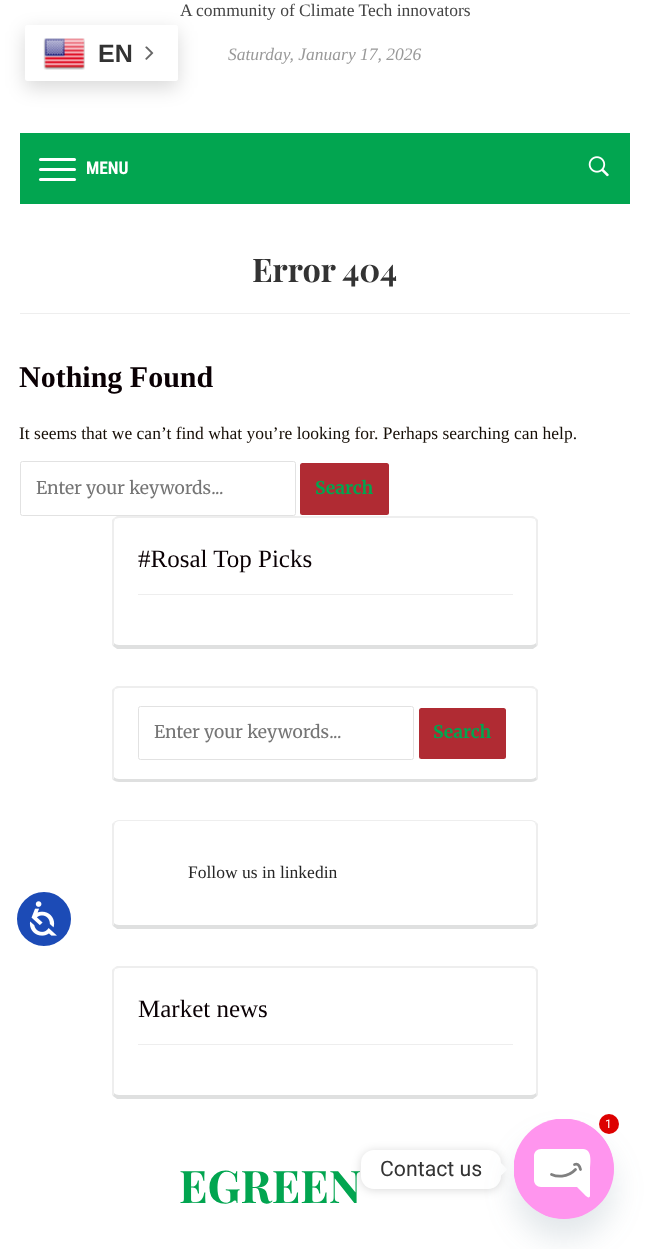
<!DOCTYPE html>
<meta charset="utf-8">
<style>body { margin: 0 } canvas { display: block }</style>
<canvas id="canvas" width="650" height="1249"></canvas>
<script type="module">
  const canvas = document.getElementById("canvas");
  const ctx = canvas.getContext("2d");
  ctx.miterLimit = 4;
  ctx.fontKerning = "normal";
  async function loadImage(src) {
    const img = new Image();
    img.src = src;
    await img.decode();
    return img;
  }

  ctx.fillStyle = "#ffffff";
  ctx.fillRect(0, 0, 650, 1249);
  ctx.font = "17.5px Liberation Serif";
  ctx.fillStyle = "#444444";
  ctx.fillText("A community of Climate Tech innovators", 180, 16);
  ctx.font = "italic 17.5px Liberation Serif";
  ctx.fillStyle = "#999999";
  ctx.fillText("Saturday, January 17, 2026", 228, 60);
  ctx.fillStyle = "#02a550";
  ctx.fillRect(20, 133, 610, 71);
  ctx.fillStyle = "#ffffff";
  ctx.beginPath();
  ctx.roundRect(39, 158, 37, 3, 1.5);
  ctx.fill();
  ctx.beginPath();
  ctx.roundRect(39, 168, 37, 3, 1.5);
  ctx.fill();
  ctx.beginPath();
  ctx.roundRect(39, 178, 37, 3, 1.5);
  ctx.fill();
  ctx.font = "bold 17.5px Roboto Condensed";
  ctx.fillText("MENU", 86, 174);
  ctx.drawImage(await loadImage("img1.png"), 588, 156, 21, 21);
  ctx.fillStyle = "#eeeeee";
  ctx.fillRect(20, 313, 610, 1);
  ctx.font = "bold 32.5px Playfair Display";
  ctx.fillStyle = "#333333";
  ctx.fillText("Error 404", 252, 282);
  ctx.font = "bold 30px Liberation Serif";
  ctx.fillStyle = "#0a0004";
  ctx.fillText("Nothing Found", 19, 387);
  ctx.font = "17.5px Liberation Serif";
  ctx.fillStyle = "#160e06";
  ctx.fillText("It seems that we can’t find what you’re looking for. Perhaps searching can help.", 19, 439);
  ctx.beginPath();
  ctx.roundRect(20.5, 461.5, 275, 54, 2);
  ctx.strokeStyle = "#e2e2e2";
  ctx.stroke();
  ctx.font = "17.5px Merriweather";
  ctx.fillStyle = "#757575";
  ctx.fillText("Enter your keywords...", 36, 494);
  ctx.fillStyle = "#b02b33";
  ctx.beginPath();
  ctx.roundRect(300, 463, 89, 52, 2.5);
  ctx.fill();
  ctx.font = "bold 17.5px Merriweather";
  ctx.fillStyle = "#02a550";
  ctx.fillText("Search", 315, 494);
  ctx.fillStyle = "#eeeeee";
  ctx.beginPath();
  ctx.moveTo(119, 518);
  ctx.lineTo(115, 519);
  ctx.lineTo(114, 518);
  ctx.lineTo(117, 516);
  ctx.lineTo(533, 516);
  ctx.lineTo(536, 518);
  ctx.lineTo(535, 519);
  ctx.lineTo(531, 518);
  ctx.closePath();
  ctx.fill();
  ctx.beginPath();
  ctx.moveTo(538, 645);
  ctx.lineTo(537, 646);
  ctx.lineTo(536, 643);
  ctx.lineTo(536, 522);
  ctx.lineTo(535, 519);
  ctx.lineTo(536, 518);
  ctx.lineTo(538, 520);
  ctx.closePath();
  ctx.fill();
  ctx.fillStyle = "#dfe0e0";
  ctx.beginPath();
  ctx.moveTo(117, 649);
  ctx.bezierCurveTo(116, 648, 114, 647, 113, 646);
  ctx.lineTo(114, 643);
  ctx.bezierCurveTo(115, 644, 117, 645, 119, 645);
  ctx.lineTo(531, 645);
  ctx.bezierCurveTo(533, 645, 535, 644, 536, 643);
  ctx.lineTo(537, 646);
  ctx.bezierCurveTo(536, 647, 534, 648, 533, 649);
  ctx.closePath();
  ctx.fill();
  ctx.fillStyle = "#eeeeee";
  ctx.beginPath();
  ctx.moveTo(112, 520);
  ctx.lineTo(114, 518);
  ctx.lineTo(115, 519);
  ctx.lineTo(114, 522);
  ctx.lineTo(114, 643);
  ctx.lineTo(113, 646);
  ctx.lineTo(112, 645);
  ctx.closePath();
  ctx.fill();
  ctx.fillRect(138, 594, 375, 1);
  ctx.font = "25px Liberation Serif";
  ctx.fillStyle = "#0a0004";
  ctx.fillText("#Rosal Top Picks", 138, 567);
  ctx.fillStyle = "#eeeeee";
  ctx.beginPath();
  ctx.moveTo(119, 688);
  ctx.lineTo(115, 689);
  ctx.lineTo(114, 688);
  ctx.lineTo(117, 686);
  ctx.lineTo(533, 686);
  ctx.lineTo(536, 688);
  ctx.lineTo(535, 689);
  ctx.lineTo(531, 688);
  ctx.closePath();
  ctx.fill();
  ctx.beginPath();
  ctx.moveTo(538, 779);
  ctx.lineTo(537, 780);
  ctx.lineTo(536, 777);
  ctx.lineTo(536, 692);
  ctx.lineTo(535, 689);
  ctx.lineTo(536, 688);
  ctx.lineTo(538, 690);
  ctx.closePath();
  ctx.fill();
  ctx.fillStyle = "#dfe0e0";
  ctx.beginPath();
  ctx.moveTo(537, 780);
  ctx.bezierCurveTo(535, 781, 533, 782, 531, 782);
  ctx.lineTo(119, 782);
  ctx.bezierCurveTo(117, 782, 115, 781, 113, 780);
  ctx.lineTo(114, 777);
  ctx.bezierCurveTo(115, 778, 117, 779, 119, 779);
  ctx.lineTo(531, 779);
  ctx.bezierCurveTo(533, 779, 535, 778, 536, 777);
  ctx.closePath();
  ctx.fill();
  ctx.fillStyle = "#eeeeee";
  ctx.beginPath();
  ctx.moveTo(112, 690);
  ctx.lineTo(114, 688);
  ctx.lineTo(115, 689);
  ctx.lineTo(114, 692);
  ctx.lineTo(114, 777);
  ctx.lineTo(113, 780);
  ctx.lineTo(112, 779);
  ctx.closePath();
  ctx.fill();
  ctx.beginPath();
  ctx.roundRect(138.5, 706.5, 275, 53, 2);
  ctx.stroke();
  ctx.font = "17.5px Merriweather";
  ctx.fillStyle = "#757575";
  ctx.fillText("Enter your keywords...", 154, 738);
  ctx.fillStyle = "#b02b33";
  ctx.beginPath();
  ctx.roundRect(419, 708, 87, 51, 2.5);
  ctx.fill();
  ctx.font = "bold 17.5px Merriweather";
  ctx.fillStyle = "#02a550";
  ctx.fillText("Search", 433, 738);
  ctx.fillStyle = "#eeeeee";
  ctx.beginPath();
  ctx.moveTo(119, 820);
  ctx.bezierCurveTo(117, 820, 115, 821, 114, 822);
  ctx.lineTo(115, 823);
  ctx.bezierCurveTo(116, 822, 117, 821, 119, 821);
  ctx.lineTo(531, 821);
  ctx.bezierCurveTo(533, 821, 534, 822, 535, 823);
  ctx.lineTo(536, 822);
  ctx.bezierCurveTo(535, 821, 533, 820, 531, 820);
  ctx.closePath();
  ctx.fill();
  ctx.beginPath();
  ctx.moveTo(538, 925);
  ctx.lineTo(537, 926);
  ctx.lineTo(536, 923);
  ctx.lineTo(536, 826);
  ctx.lineTo(535, 823);
  ctx.lineTo(536, 822);
  ctx.lineTo(538, 824);
  ctx.closePath();
  ctx.fill();
  ctx.fillStyle = "#dfe0e0";
  ctx.beginPath();
  ctx.moveTo(117, 929);
  ctx.bezierCurveTo(116, 928, 114, 927, 113, 926);
  ctx.lineTo(114, 923);
  ctx.bezierCurveTo(115, 924, 117, 925, 119, 925);
  ctx.lineTo(531, 925);
  ctx.bezierCurveTo(533, 925, 535, 924, 536, 923);
  ctx.lineTo(537, 926);
  ctx.bezierCurveTo(536, 927, 534, 928, 533, 929);
  ctx.closePath();
  ctx.fill();
  ctx.fillStyle = "#eeeeee";
  ctx.beginPath();
  ctx.moveTo(112, 824);
  ctx.lineTo(114, 822);
  ctx.lineTo(115, 823);
  ctx.lineTo(114, 826);
  ctx.lineTo(114, 923);
  ctx.lineTo(113, 926);
  ctx.lineTo(112, 925);
  ctx.closePath();
  ctx.fill();
  ctx.font = "17.5px Liberation Serif";
  ctx.fillStyle = "#262626";
  ctx.fillText("Follow us in linkedin", 188, 878);
  ctx.fillStyle = "#eeeeee";
  ctx.beginPath();
  ctx.moveTo(119, 968);
  ctx.lineTo(115, 969);
  ctx.lineTo(114, 968);
  ctx.lineTo(117, 966);
  ctx.lineTo(533, 966);
  ctx.lineTo(536, 968);
  ctx.lineTo(535, 969);
  ctx.lineTo(531, 968);
  ctx.closePath();
  ctx.fill();
  ctx.beginPath();
  ctx.moveTo(538, 1095);
  ctx.lineTo(537, 1096);
  ctx.lineTo(536, 1093);
  ctx.lineTo(536, 972);
  ctx.lineTo(535, 969);
  ctx.lineTo(536, 968);
  ctx.lineTo(538, 970);
  ctx.closePath();
  ctx.fill();
  ctx.fillStyle = "#dfe0e0";
  ctx.beginPath();
  ctx.moveTo(117, 1099);
  ctx.bezierCurveTo(116, 1098, 114, 1097, 113, 1096);
  ctx.lineTo(114, 1093);
  ctx.bezierCurveTo(115, 1094, 117, 1095, 119, 1095);
  ctx.lineTo(531, 1095);
  ctx.bezierCurveTo(533, 1095, 535, 1094, 536, 1093);
  ctx.lineTo(537, 1096);
  ctx.bezierCurveTo(536, 1097, 534, 1098, 533, 1099);
  ctx.closePath();
  ctx.fill();
  ctx.fillStyle = "#eeeeee";
  ctx.beginPath();
  ctx.moveTo(112, 970);
  ctx.lineTo(114, 968);
  ctx.lineTo(115, 969);
  ctx.lineTo(114, 972);
  ctx.lineTo(114, 1093);
  ctx.lineTo(113, 1096);
  ctx.lineTo(112, 1095);
  ctx.closePath();
  ctx.fill();
  ctx.fillRect(138, 1044, 375, 1);
  ctx.font = "25px Liberation Serif";
  ctx.fillStyle = "#0a0004";
  ctx.fillText("Market news", 138, 1017);
  ctx.fillStyle = "rgba(0, 0, 0, 0.15)";
  ctx.filter = "blur(9.5px)";
  ctx.beginPath();
  ctx.roundRect(25, 31, 153, 57, 2.5);
  ctx.fill();
  ctx.filter = "none";
  ctx.fillStyle = "#ffffff";
  ctx.beginPath();
  ctx.roundRect(25, 25, 153, 56, 2.5);
  ctx.fill();
  ctx.drawImage(await loadImage("img2.png"), 43, 38, 42, 32);
  ctx.font = "bold 25px Liberation Sans";
  ctx.fillStyle = "#333333";
  ctx.fillText("EN", 98, 62);
  ctx.drawImage(await loadImage("img3.png"), 145, 46, 9, 14);
  ctx.font = "bold 45px Playfair Display";
  ctx.fillStyle = "#02a550";
  ctx.fillText("EGREEN", 179, 1203);
  ctx.fillStyle = "#1c4bb6";
  ctx.beginPath();
  ctx.arc(44, 919, 29, 0, Math.PI * 2);
  ctx.fill();
  ctx.strokeStyle = "#ffffff";
  ctx.lineWidth = 4;
  ctx.stroke();
  ctx.drawImage(await loadImage("img4.png"), 29, 901, 28, 35);
  ctx.fillStyle = "rgba(0, 0, 0, 0.15)";
  ctx.filter = "blur(5px)";
  ctx.beginPath();
  ctx.roundRect(361, 1151, 140, 39, 13);
  ctx.fill();
  ctx.filter = "none";
  ctx.fillStyle = "#ffffff";
  ctx.beginPath();
  ctx.roundRect(361, 1150, 140, 39, 13);
  ctx.fill();
  ctx.beginPath();
  ctx.moveTo(501, 1175.5);
  ctx.lineTo(501, 1163);
  ctx.lineTo(507.5, 1169.5);
  ctx.closePath();
  ctx.fill();
  ctx.fillStyle = "rgba(73, 104, 126, 0.16)";
  ctx.filter = "blur(15px)";
  ctx.beginPath();
  ctx.roundRect(514, 1139, 100, 100, 50);
  ctx.fill();
  ctx.filter = "none";
  ctx.fillStyle = "#ff95ee";
  ctx.beginPath();
  ctx.arc(564, 1169, 50, 0, Math.PI * 2);
  ctx.fill();
  ctx.save();
  ctx.beginPath();
  ctx.rect(514, 1119, 100, 100);
  ctx.clip();
  ctx.beginPath();
  ctx.arc(563.5, 1168.5, 50, 0, Math.PI * 2);
  ctx.fill();
  ctx.restore();
  ctx.fillStyle = "#ffffff";
  ctx.beginPath();
  ctx.moveTo(583, 1149);
  ctx.lineTo(541, 1149);
  ctx.bezierCurveTo(537, 1149, 534, 1152, 534, 1156);
  ctx.lineTo(534, 1180);
  ctx.bezierCurveTo(534, 1184, 537, 1187, 541, 1187);
  ctx.lineTo(577, 1187);
  ctx.lineTo(584, 1194);
  ctx.bezierCurveTo(584, 1194, 589, 1200, 590, 1196);
  ctx.lineTo(590, 1169);
  ctx.bezierCurveTo(590, 1164, 593, 1149, 583, 1149);
  ctx.closePath();
  ctx.fill();
  ctx.beginPath();
  ctx.moveTo(551.5, 1174.5);
  ctx.bezierCurveTo(556, 1176.5, 567, 1178.5, 575.5, 1169.5);
  ctx.moveTo(580.5, 1169.5);
  ctx.bezierCurveTo(580, 1167.5, 579, 1163, 574.5, 1164.5);
  ctx.strokeStyle = "#808080";
  ctx.lineWidth = 2.8;
  ctx.lineCap = "round";
  ctx.lineJoin = "round";
  ctx.stroke();
  ctx.fillStyle = "#dd0000";
  ctx.beginPath();
  ctx.arc(609, 1124, 10, 0, Math.PI * 2);
  ctx.fill();
  ctx.font = "12px Roboto";
  ctx.fillStyle = "#ffffff";
  ctx.fillText("1", 605, 1128);
  ctx.font = "21.25px Roboto";
  ctx.fillStyle = "#333333";
  ctx.fillText("Contact us", 380, 1176);
</script>
